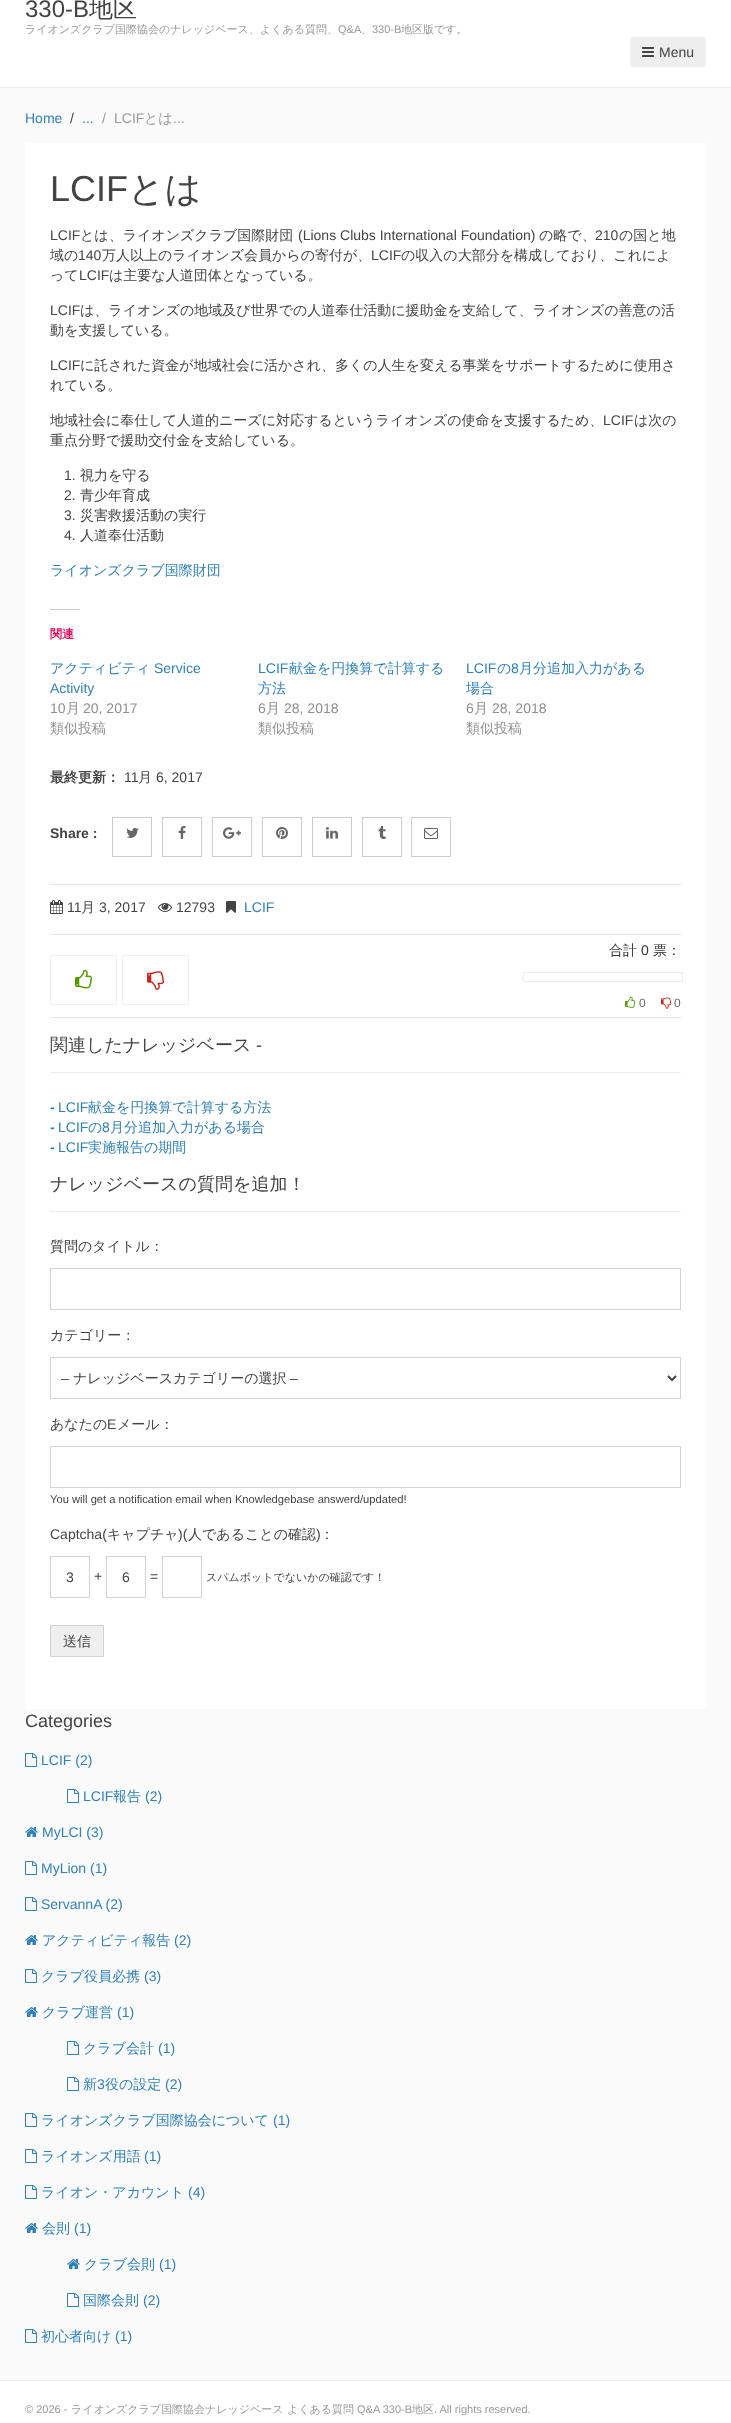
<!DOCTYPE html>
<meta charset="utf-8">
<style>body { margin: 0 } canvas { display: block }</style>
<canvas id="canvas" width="731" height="2423"></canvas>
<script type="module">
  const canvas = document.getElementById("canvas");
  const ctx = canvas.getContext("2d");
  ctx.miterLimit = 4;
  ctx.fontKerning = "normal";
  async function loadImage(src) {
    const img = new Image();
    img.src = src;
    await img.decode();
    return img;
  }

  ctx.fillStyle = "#ffffff";
  ctx.fillRect(0, 0, 731, 2423);
  ctx.fillStyle = "#ededed";
  ctx.fillRect(0, 87, 731, 1);
  ctx.font = "24px Liberation Sans";
  ctx.fillStyle = "#444444";
  ctx.fillText("330-B", 25, 17);
  ctx.font = "500 24px WenQuanYi Zen Hei";
  ctx.fillText("地区", 89, 17);
  ctx.font = "500 11px WenQuanYi Zen Hei";
  ctx.fillStyle = "#999999";
  ctx.fillText("ライオンズクラブ国際協会のナレッジベース、よくある質問、", 25, 33);
  ctx.font = "11px Liberation Sans";
  ctx.fillText("Q&A", 338, 33);
  ctx.font = "500 11px WenQuanYi Zen Hei";
  ctx.fillText("、", 361, 33);
  ctx.font = "11px Liberation Sans";
  ctx.fillText("330-B", 372, 33);
  ctx.font = "500 11px WenQuanYi Zen Hei";
  ctx.fillText("地区版です。", 401, 33);
  ctx.fillStyle = "#eeeeee";
  ctx.beginPath();
  ctx.roundRect(630, 37, 76, 30, 4);
  ctx.fill();
  ctx.drawImage(await loadImage("img1.png"), 642, 47, 12, 10);
  ctx.font = "14px Liberation Sans";
  ctx.fillStyle = "#444444";
  ctx.fillText("Menu", 659, 57);
  ctx.fillStyle = "#fafafa";
  ctx.fillRect(0, 88, 731, 2292);
  ctx.fillStyle = "#3081b7";
  ctx.fillText("Home", 25, 123);
  ctx.fillStyle = "#444444";
  ctx.fillText("/", 70, 123);
  ctx.fillStyle = "#3081b7";
  ctx.fillText("...", 82, 123);
  ctx.fillStyle = "#999999";
  ctx.fillText("/", 102, 123);
  ctx.fillText("LCIF", 114, 123);
  ctx.font = "500 14px WenQuanYi Zen Hei";
  ctx.fillText("とは", 144, 123);
  ctx.font = "14px Liberation Sans";
  ctx.fillText("...", 173, 123);
  ctx.fillStyle = "#ffffff";
  ctx.fillRect(25, 143, 681, 1566);
  ctx.font = "36px Liberation Sans";
  ctx.fillStyle = "#444444";
  ctx.fillText("LCIF", 50, 201);
  ctx.font = "500 36px WenQuanYi Zen Hei";
  ctx.fillText("とは", 128, 201);
  ctx.font = "14px Liberation Sans";
  ctx.fillText("LCIF", 50, 240);
  ctx.font = "500 14px WenQuanYi Zen Hei";
  ctx.fillText("とは、ライオンズクラブ国際財団", 80, 240);
  ctx.font = "14px Liberation Sans";
  ctx.fillText("(Lions Clubs International Foundation)", 298, 240);
  ctx.font = "500 14px WenQuanYi Zen Hei";
  ctx.fillText("の略で、", 539, 240);
  ctx.font = "14px Liberation Sans";
  ctx.fillText("210", 595, 240);
  ctx.font = "500 14px WenQuanYi Zen Hei";
  ctx.fillText("の国と地", 619, 240);
  ctx.fillText("域の", 50, 260);
  ctx.font = "14px Liberation Sans";
  ctx.fillText("140", 78, 260);
  ctx.font = "500 14px WenQuanYi Zen Hei";
  ctx.fillText("万人以上のライオンズ会員からの寄付が、", 102, 260);
  ctx.font = "14px Liberation Sans";
  ctx.fillText("LCIF", 371, 260);
  ctx.font = "500 14px WenQuanYi Zen Hei";
  ctx.fillText("の収入の大部分を構成しており、これによ", 401, 260);
  ctx.fillText("って", 50, 280);
  ctx.font = "14px Liberation Sans";
  ctx.fillText("LCIF", 79, 280);
  ctx.font = "500 14px WenQuanYi Zen Hei";
  ctx.fillText("は主要な人道団体となっている。", 109, 280);
  ctx.font = "14px Liberation Sans";
  ctx.fillText("LCIF", 50, 315);
  ctx.font = "500 14px WenQuanYi Zen Hei";
  ctx.fillText("は、ライオンズの地域及び世界での人道奉仕活動に援助金を支給して、ライオンズの善意の活", 80, 315);
  ctx.fillText("動を支援している。", 50, 335);
  ctx.font = "14px Liberation Sans";
  ctx.fillText("LCIF", 50, 370);
  ctx.font = "500 14px WenQuanYi Zen Hei";
  ctx.fillText("に託された資金が地域社会に活かされ、多くの人生を変える事業をサポートするために使用さ", 80, 370);
  ctx.fillText("れている。", 50, 390);
  ctx.fillText("地域社会に奉仕して人道的ニーズに対応するというライオンズの使命を支援するため、", 50, 425);
  ctx.font = "14px Liberation Sans";
  ctx.fillText("LCIF", 603, 425);
  ctx.font = "500 14px WenQuanYi Zen Hei";
  ctx.fillText("は次の", 634, 425);
  ctx.fillText("重点分野で援助交付金を支給している。", 50, 445);
  ctx.font = "14px Liberation Sans";
  ctx.fillText("1.", 64, 480);
  ctx.font = "500 14px WenQuanYi Zen Hei";
  ctx.fillText("視力を守る", 80, 480);
  ctx.font = "14px Liberation Sans";
  ctx.fillText("2.", 64, 500);
  ctx.font = "500 14px WenQuanYi Zen Hei";
  ctx.fillText("青少年育成", 80, 500);
  ctx.font = "14px Liberation Sans";
  ctx.fillText("3.", 64, 520);
  ctx.font = "500 14px WenQuanYi Zen Hei";
  ctx.fillText("災害救援活動の実行", 80, 520);
  ctx.font = "14px Liberation Sans";
  ctx.fillText("4.", 64, 540);
  ctx.font = "500 14px WenQuanYi Zen Hei";
  ctx.fillText("人道奉仕活動", 80, 540);
  ctx.fillStyle = "#3081b7";
  ctx.fillText("ライオンズクラブ国際財団", 50, 575);
  ctx.fillStyle = "#cccccc";
  ctx.fillRect(50, 609, 30, 1);
  ctx.font = "bold 12px WenQuanYi Zen Hei";
  ctx.fillStyle = "#dd0055";
  ctx.fillText("関連", 50, 638);
  ctx.font = "500 14px WenQuanYi Zen Hei";
  ctx.fillStyle = "#3081b7";
  ctx.fillText("アクティビティ", 50, 673);
  ctx.font = "14px Liberation Sans";
  ctx.fillText("Service", 154, 673);
  ctx.fillText("Activity", 50, 693);
  ctx.fillStyle = "#8f8f8f";
  ctx.fillText("10", 50, 713);
  ctx.font = "500 14px WenQuanYi Zen Hei";
  ctx.fillText("月", 66, 713);
  ctx.font = "14px Liberation Sans";
  ctx.fillText("20, 2017", 83, 713);
  ctx.font = "500 14px WenQuanYi Zen Hei";
  ctx.fillText("類似投稿", 50, 733);
  ctx.font = "14px Liberation Sans";
  ctx.fillStyle = "#3081b7";
  ctx.fillText("LCIF", 258, 673);
  ctx.font = "500 14px WenQuanYi Zen Hei";
  ctx.fillText("献金を円換算で計算する", 289, 673);
  ctx.fillText("方法", 258, 693);
  ctx.font = "14px Liberation Sans";
  ctx.fillStyle = "#8f8f8f";
  ctx.fillText("6", 258, 713);
  ctx.font = "500 14px WenQuanYi Zen Hei";
  ctx.fillText("月", 266, 713);
  ctx.font = "14px Liberation Sans";
  ctx.fillText("28, 2018", 284, 713);
  ctx.font = "500 14px WenQuanYi Zen Hei";
  ctx.fillText("類似投稿", 258, 733);
  ctx.font = "14px Liberation Sans";
  ctx.fillStyle = "#3081b7";
  ctx.fillText("LCIF", 466, 673);
  ctx.font = "500 14px WenQuanYi Zen Hei";
  ctx.fillText("の", 497, 673);
  ctx.font = "14px Liberation Sans";
  ctx.fillText("8", 511, 673);
  ctx.font = "500 14px WenQuanYi Zen Hei";
  ctx.fillText("月分追加入力がある", 519, 673);
  ctx.fillText("場合", 466, 693);
  ctx.font = "14px Liberation Sans";
  ctx.fillStyle = "#8f8f8f";
  ctx.fillText("6", 466, 713);
  ctx.font = "500 14px WenQuanYi Zen Hei";
  ctx.fillText("月", 474, 713);
  ctx.font = "14px Liberation Sans";
  ctx.fillText("28, 2018", 492, 713);
  ctx.font = "500 14px WenQuanYi Zen Hei";
  ctx.fillText("類似投稿", 466, 733);
  ctx.font = "bold 14px WenQuanYi Zen Hei";
  ctx.fillStyle = "#444444";
  ctx.fillText("最終更新：", 50, 782);
  ctx.font = "14px Liberation Sans";
  ctx.fillText("11", 124, 782);
  ctx.font = "500 14px WenQuanYi Zen Hei";
  ctx.fillText("月", 138, 782);
  ctx.font = "14px Liberation Sans";
  ctx.fillText("6, 2017", 156, 782);
  ctx.font = "bold 14px Liberation Sans";
  ctx.fillText("Share :", 50, 838);
  ctx.strokeStyle = "#cccccc";
  ctx.strokeRect(112.5, 817.5, 39, 39);
  ctx.drawImage(await loadImage("img2.png"), 126, 828, 13, 10);
  ctx.strokeRect(162.5, 817.5, 39, 39);
  ctx.drawImage(await loadImage("img3.png"), 178, 826, 8, 13);
  ctx.strokeRect(212.5, 817.5, 39, 39);
  ctx.drawImage(await loadImage("img4.png"), 223, 827, 18, 12);
  ctx.strokeRect(262.5, 817.5, 39, 39);
  ctx.drawImage(await loadImage("img5.png"), 276, 827, 12, 12);
  ctx.strokeRect(312.5, 817.5, 39, 39);
  ctx.drawImage(await loadImage("img6.png"), 326, 827, 12, 12);
  ctx.strokeRect(362.5, 817.5, 39, 39);
  ctx.drawImage(await loadImage("img7.png"), 378, 826, 8, 13);
  ctx.strokeRect(411.5, 817.5, 39, 39);
  ctx.drawImage(await loadImage("img8.png"), 424, 828, 14, 11);
  ctx.fillStyle = "#e6e6e6";
  ctx.fillRect(50, 884, 631, 1);
  ctx.drawImage(await loadImage("img9.png"), 50, 900, 13, 14);
  ctx.font = "14px Liberation Sans";
  ctx.fillStyle = "#444444";
  ctx.fillText("11", 67, 912);
  ctx.font = "500 14px WenQuanYi Zen Hei";
  ctx.fillText("月", 81, 912);
  ctx.font = "14px Liberation Sans";
  ctx.fillText("3, 2017", 99, 912);
  ctx.drawImage(await loadImage("img10.png"), 158, 903, 14, 9);
  ctx.fillText("12793", 176, 912);
  ctx.drawImage(await loadImage("img11.png"), 226, 901, 10, 12);
  ctx.fillStyle = "#3081b7";
  ctx.fillText("LCIF", 244, 912);
  ctx.fillStyle = "#e6e6e6";
  ctx.fillRect(50, 934, 631, 1);
  ctx.fillRect(50, 1017, 631, 1);
  ctx.strokeStyle = "#f0f0f0";
  ctx.strokeRect(50.5, 955.5, 66, 49);
  ctx.drawImage(await loadImage("img12.png"), 75, 969, 18, 20);
  ctx.strokeRect(122.5, 955.5, 66, 49);
  ctx.drawImage(await loadImage("img13.png"), 147, 971, 18, 19);
  ctx.font = "500 14px WenQuanYi Zen Hei";
  ctx.fillStyle = "#333333";
  ctx.fillText("合計", 609, 955);
  ctx.font = "14px Liberation Sans";
  ctx.fillText("0", 641, 955);
  ctx.font = "500 14px WenQuanYi Zen Hei";
  ctx.fillText("票：", 653, 955);
  ctx.strokeStyle = "#eeeeee";
  ctx.strokeRect(523.5, 972.5, 159, 9);
  ctx.drawImage(await loadImage("img14.png"), 625, 996, 11, 12);
  ctx.font = "12px Liberation Sans";
  ctx.fillStyle = "#666666";
  ctx.fillText("0", 639, 1007);
  ctx.drawImage(await loadImage("img15.png"), 661, 997, 11, 12);
  ctx.fillText("0", 674, 1007);
  ctx.fillStyle = "#eeeeee";
  ctx.fillRect(50, 1072, 631, 1);
  ctx.font = "500 18px WenQuanYi Zen Hei";
  ctx.fillStyle = "#444444";
  ctx.fillText("関連したナレッジベース", 50, 1051);
  ctx.font = "18px Liberation Sans";
  ctx.fillText("-", 256, 1051);
  ctx.font = "bold 14px Liberation Sans";
  ctx.fillStyle = "#3081b7";
  ctx.fillText("-", 50, 1112);
  ctx.font = "14px Liberation Sans";
  ctx.fillText("LCIF", 58, 1112);
  ctx.font = "500 14px WenQuanYi Zen Hei";
  ctx.fillText("献金を円換算で計算する方法", 88, 1112);
  ctx.font = "bold 14px Liberation Sans";
  ctx.fillText("-", 50, 1132);
  ctx.font = "14px Liberation Sans";
  ctx.fillText("LCIF", 58, 1132);
  ctx.font = "500 14px WenQuanYi Zen Hei";
  ctx.fillText("の", 88, 1132);
  ctx.font = "14px Liberation Sans";
  ctx.fillText("8", 102, 1132);
  ctx.font = "500 14px WenQuanYi Zen Hei";
  ctx.fillText("月分追加入力がある場合", 110, 1132);
  ctx.font = "bold 14px Liberation Sans";
  ctx.fillText("-", 50, 1152);
  ctx.font = "14px Liberation Sans";
  ctx.fillText("LCIF", 58, 1152);
  ctx.font = "500 14px WenQuanYi Zen Hei";
  ctx.fillText("実施報告の期間", 88, 1152);
  ctx.fillStyle = "#eeeeee";
  ctx.fillRect(50, 1211, 631, 1);
  ctx.font = "500 18px WenQuanYi Zen Hei";
  ctx.fillStyle = "#444444";
  ctx.fillText("ナレッジベースの質問を追加！", 50, 1190);
  ctx.font = "500 14px WenQuanYi Zen Hei";
  ctx.fillText("質問のタイトル：", 50, 1251);
  ctx.strokeStyle = "#d3d3d3";
  ctx.strokeRect(50.5, 1268.5, 630, 41);
  ctx.fillText("カテゴリー：", 50, 1340);
  ctx.strokeRect(50.5, 1357.5, 630, 41);
  ctx.beginPath();
  ctx.moveTo(668, 1376);
  ctx.lineTo(672, 1380);
  ctx.lineTo(676, 1376);
  ctx.strokeStyle = "#444444";
  ctx.lineWidth = 2;
  ctx.stroke();
  ctx.font = "14px Liberation Sans";
  ctx.fillText("–", 61, 1383);
  ctx.font = "500 14px WenQuanYi Zen Hei";
  ctx.fillText("ナレッジベースカテゴリーの選択", 73, 1383);
  ctx.font = "14px Liberation Sans";
  ctx.fillText("–", 290, 1383);
  ctx.font = "500 14px WenQuanYi Zen Hei";
  ctx.fillText("あなたの", 50, 1429);
  ctx.font = "14px Liberation Sans";
  ctx.fillText("E", 107, 1429);
  ctx.font = "500 14px WenQuanYi Zen Hei";
  ctx.fillText("メール：", 117, 1429);
  ctx.strokeStyle = "#d3d3d3";
  ctx.lineWidth = 1;
  ctx.strokeRect(50.5, 1446.5, 630, 41);
  ctx.font = "11.2px Liberation Sans";
  ctx.fillText("You will get a notification email when Knowledgebase answerd/updated!", 50, 1503);
  ctx.font = "14px Liberation Sans";
  ctx.fillText("Captcha(", 50, 1539);
  ctx.font = "500 14px WenQuanYi Zen Hei";
  ctx.fillText("キャプチャ", 107, 1539);
  ctx.font = "14px Liberation Sans";
  ctx.fillText(")(", 178, 1539);
  ctx.font = "500 14px WenQuanYi Zen Hei";
  ctx.fillText("人であることの確認", 188, 1539);
  ctx.font = "14px Liberation Sans";
  ctx.fillText(")", 316, 1539);
  ctx.font = "500 14px WenQuanYi Zen Hei";
  ctx.fillText("：", 320, 1539);
  ctx.strokeRect(50.5, 1556.5, 39, 41);
  ctx.font = "14px Liberation Sans";
  ctx.fillText("3", 66, 1582);
  ctx.fillText("+", 94, 1581);
  ctx.strokeRect(106.5, 1556.5, 39, 41);
  ctx.fillText("6", 122, 1582);
  ctx.fillText("=", 150, 1581);
  ctx.strokeRect(162.5, 1556.5, 39, 41);
  ctx.font = "500 11px WenQuanYi Zen Hei";
  ctx.fillText("スパムボットでないかの確認です！", 206, 1581);
  ctx.fillStyle = "#efefef";
  ctx.beginPath();
  ctx.rect(50.5, 1625.5, 53, 31);
  ctx.fill();
  ctx.stroke();
  ctx.font = "500 14px WenQuanYi Zen Hei";
  ctx.fillStyle = "#444444";
  ctx.fillText("送信", 63, 1646);
  ctx.font = "18px Liberation Sans";
  ctx.fillText("Categories", 25, 1727);
  ctx.drawImage(await loadImage("img16.png"), 25, 1753, 12, 14);
  ctx.font = "14px Liberation Sans";
  ctx.fillStyle = "#3081b7";
  ctx.fillText("LCIF (2)", 41, 1765);
  ctx.drawImage(await loadImage("img16.png"), 67, 1789, 12, 14);
  ctx.fillText("LCIF", 83, 1801);
  ctx.font = "500 14px WenQuanYi Zen Hei";
  ctx.fillText("報告", 113, 1801);
  ctx.font = "14px Liberation Sans";
  ctx.fillText("(2)", 145, 1801);
  ctx.drawImage(await loadImage("img17.png"), 25, 1827, 13, 10);
  ctx.fillText("MyLCI (3)", 42, 1837);
  ctx.drawImage(await loadImage("img16.png"), 25, 1861, 12, 14);
  ctx.fillText("MyLion (1)", 41, 1873);
  ctx.drawImage(await loadImage("img16.png"), 25, 1897, 12, 14);
  ctx.fillText("ServannA (2)", 41, 1909);
  ctx.drawImage(await loadImage("img17.png"), 25, 1935, 13, 10);
  ctx.font = "500 14px WenQuanYi Zen Hei";
  ctx.fillText("アクティビティ報告", 42, 1945);
  ctx.font = "14px Liberation Sans";
  ctx.fillText("(2)", 174, 1945);
  ctx.drawImage(await loadImage("img16.png"), 25, 1969, 12, 14);
  ctx.font = "500 14px WenQuanYi Zen Hei";
  ctx.fillText("クラブ役員必携", 41, 1981);
  ctx.font = "14px Liberation Sans";
  ctx.fillText("(3)", 144, 1981);
  ctx.drawImage(await loadImage("img17.png"), 25, 2007, 13, 10);
  ctx.font = "500 14px WenQuanYi Zen Hei";
  ctx.fillText("クラブ運営", 42, 2017);
  ctx.font = "14px Liberation Sans";
  ctx.fillText("(1)", 117, 2017);
  ctx.drawImage(await loadImage("img16.png"), 67, 2041, 12, 14);
  ctx.font = "500 14px WenQuanYi Zen Hei";
  ctx.fillText("クラブ会計", 83, 2053);
  ctx.font = "14px Liberation Sans";
  ctx.fillText("(1)", 158, 2053);
  ctx.drawImage(await loadImage("img16.png"), 67, 2077, 12, 14);
  ctx.font = "500 14px WenQuanYi Zen Hei";
  ctx.fillText("新", 83, 2089);
  ctx.font = "14px Liberation Sans";
  ctx.fillText("3", 97, 2089);
  ctx.font = "500 14px WenQuanYi Zen Hei";
  ctx.fillText("役の設定", 105, 2089);
  ctx.font = "14px Liberation Sans";
  ctx.fillText("(2)", 165, 2089);
  ctx.drawImage(await loadImage("img16.png"), 25, 2113, 12, 14);
  ctx.font = "500 14px WenQuanYi Zen Hei";
  ctx.fillText("ライオンズクラブ国際協会について", 41, 2125);
  ctx.font = "14px Liberation Sans";
  ctx.fillText("(1)", 273, 2125);
  ctx.drawImage(await loadImage("img16.png"), 25, 2149, 12, 14);
  ctx.font = "500 14px WenQuanYi Zen Hei";
  ctx.fillText("ライオンズ用語", 41, 2161);
  ctx.font = "14px Liberation Sans";
  ctx.fillText("(1)", 144, 2161);
  ctx.drawImage(await loadImage("img16.png"), 25, 2185, 12, 14);
  ctx.font = "500 14px WenQuanYi Zen Hei";
  ctx.fillText("ライオン・アカウント", 41, 2197);
  ctx.font = "14px Liberation Sans";
  ctx.fillText("(4)", 188, 2197);
  ctx.drawImage(await loadImage("img17.png"), 25, 2223, 13, 10);
  ctx.font = "500 14px WenQuanYi Zen Hei";
  ctx.fillText("会則", 42, 2233);
  ctx.font = "14px Liberation Sans";
  ctx.fillText("(1)", 74, 2233);
  ctx.drawImage(await loadImage("img17.png"), 67, 2259, 13, 10);
  ctx.font = "500 14px WenQuanYi Zen Hei";
  ctx.fillText("クラブ会則", 84, 2269);
  ctx.font = "14px Liberation Sans";
  ctx.fillText("(1)", 159, 2269);
  ctx.drawImage(await loadImage("img16.png"), 67, 2293, 12, 14);
  ctx.font = "500 14px WenQuanYi Zen Hei";
  ctx.fillText("国際会則", 83, 2305);
  ctx.font = "14px Liberation Sans";
  ctx.fillText("(2)", 143, 2305);
  ctx.drawImage(await loadImage("img16.png"), 25, 2329, 12, 14);
  ctx.font = "500 14px WenQuanYi Zen Hei";
  ctx.fillText("初心者向け", 41, 2341);
  ctx.font = "14px Liberation Sans";
  ctx.fillText("(1)", 115, 2341);
  ctx.fillStyle = "#ededed";
  ctx.fillRect(0, 2380, 731, 1);
  ctx.font = "11px Liberation Sans";
  ctx.fillStyle = "#999999";
  ctx.fillText("© 2026 -", 25, 2413);
  ctx.font = "500 11px WenQuanYi Zen Hei";
  ctx.fillText("ライオンズクラブ国際協会ナレッジベース よくある質問", 71, 2413);
  ctx.font = "11px Liberation Sans";
  ctx.fillText("Q&A 330-B", 357, 2413);
  ctx.font = "500 11px WenQuanYi Zen Hei";
  ctx.fillText("地区", 412, 2413);
  ctx.font = "11px Liberation Sans";
  ctx.fillText(". All rights reserved.", 434, 2413);
</script>
